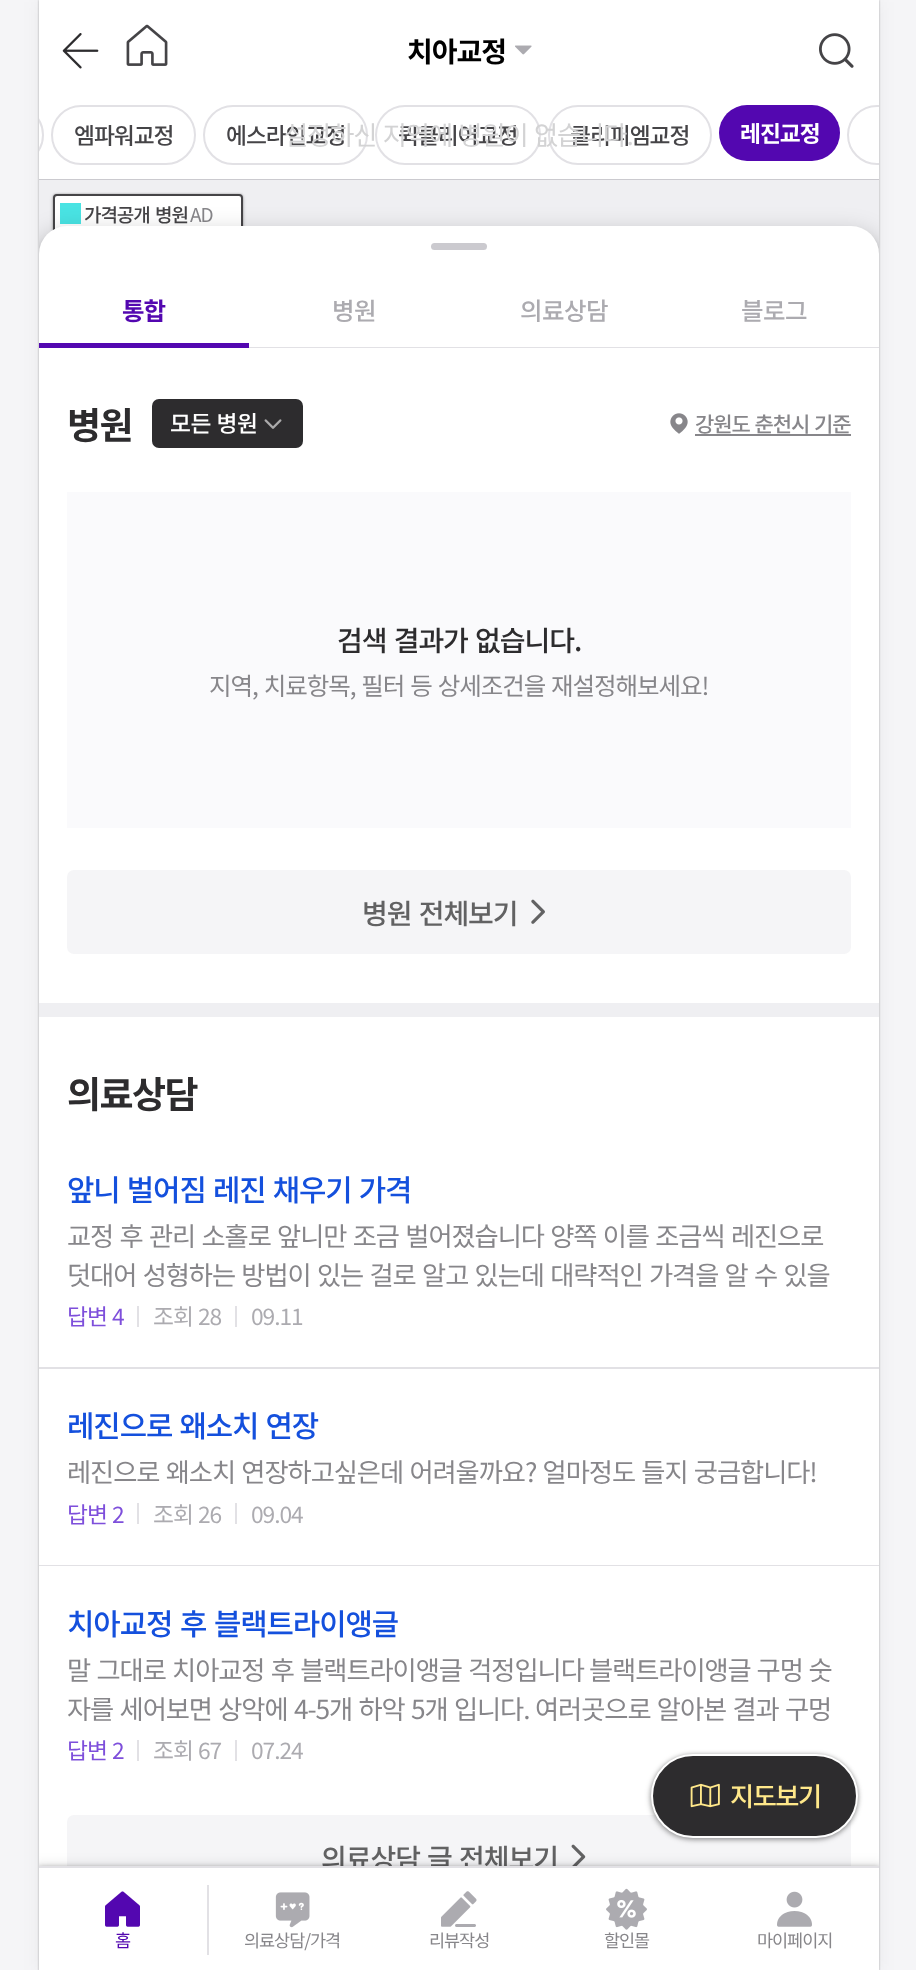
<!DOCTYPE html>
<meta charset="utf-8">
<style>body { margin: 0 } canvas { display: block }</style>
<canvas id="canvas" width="916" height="1970"></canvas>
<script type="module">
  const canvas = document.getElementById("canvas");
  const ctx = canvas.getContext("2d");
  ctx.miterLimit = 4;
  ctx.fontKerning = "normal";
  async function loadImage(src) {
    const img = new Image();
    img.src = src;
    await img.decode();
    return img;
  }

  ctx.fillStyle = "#f5f5f7";
  ctx.fillRect(0, 0, 916, 1970);
  ctx.fillStyle = "rgba(0, 0, 0, 0.05)";
  ctx.filter = "blur(9px)";
  ctx.beginPath();
  ctx.rect(39, 2, 840, 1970);
  ctx.fill();
  ctx.filter = "none";
  ctx.fillStyle = "rgba(0, 0, 0, 0.3)";
  ctx.filter = "blur(1px)";
  ctx.beginPath();
  ctx.rect(39, 0, 840, 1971);
  ctx.fill();
  ctx.filter = "none";
  ctx.fillStyle = "#ffffff";
  ctx.fillRect(39, 0, 840, 179);
  ctx.drawImage(await loadImage("img1.png"), 62, 33, 37, 36);
  ctx.drawImage(await loadImage("img2.png"), 126, 24, 42, 42);
  ctx.letterSpacing = "-1.05px";
  ctx.font = "bold 28px Noto Sans KR";
  ctx.fillStyle = "#000000";
  ctx.fillText("치아교정", 407, 62);
  ctx.drawImage(await loadImage("img3.png"), 515, 45, 17, 10);
  ctx.drawImage(await loadImage("img4.png"), 819, 33, 35, 35);
  ctx.fillStyle = "#cbcacf";
  ctx.fillRect(39, 179, 840, 1);
  ctx.fillStyle = "#ffffff";
  ctx.beginPath();
  ctx.roundRect(39, 105, 5, 60, [0, 30, 30, 0]);
  ctx.fill();
  ctx.save();
  ctx.beginPath();
  ctx.rect(39, 91, 840, 88);
  ctx.clip();
  ctx.beginPath();
  ctx.roundRect(-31, 106, 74, 58, 29);
  ctx.strokeStyle = "#e2e1e5";
  ctx.lineWidth = 2;
  ctx.stroke();
  ctx.restore();
  ctx.beginPath();
  ctx.roundRect(52, 106, 143, 58, 29);
  ctx.strokeStyle = "#e2e1e5";
  ctx.lineWidth = 2;
  ctx.stroke();
  ctx.font = "500 22.75px Noto Sans KR";
  ctx.fillStyle = "#454447";
  ctx.fillText("엠파워교정", 74, 144);
  ctx.beginPath();
  ctx.roundRect(204, 106, 163, 58, 29);
  ctx.stroke();
  ctx.fillText("에스라인교정", 226, 144);
  ctx.beginPath();
  ctx.roundRect(376, 106, 164, 58, 29);
  ctx.stroke();
  ctx.fillText("퀵클리어교정", 398, 144);
  ctx.beginPath();
  ctx.roundRect(549, 106, 162, 58, 29);
  ctx.stroke();
  ctx.fillText("클리피엠교정", 570, 144);
  ctx.fillStyle = "#5307b0";
  ctx.beginPath();
  ctx.roundRect(719, 105, 121, 56, 28);
  ctx.fill();
  ctx.font = "bold 22.75px Noto Sans KR";
  ctx.fillStyle = "#ffffff";
  ctx.fillText("레진교정", 740, 142);
  ctx.save();
  ctx.beginPath();
  ctx.rect(39, 91, 840, 88);
  ctx.clip();
  ctx.beginPath();
  ctx.roundRect(848, 106, 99, 58, 29);
  ctx.stroke();
  ctx.restore();
  ctx.wordSpacing = "1.5px";
  ctx.font = "26.25px Noto Sans KR";
  ctx.fillStyle = "#d3d3d4";
  ctx.fillText("설정하신 지역에 병원이 없습니다.", 284, 145);
  ctx.fillStyle = "#efeff2";
  ctx.fillRect(39, 180, 840, 74);
  ctx.fillStyle = "rgba(0, 0, 0, 0.15)";
  ctx.filter = "blur(2px)";
  ctx.beginPath();
  ctx.roundRect(53, 196, 190, 95, 4);
  ctx.fill();
  ctx.filter = "none";
  ctx.fillStyle = "rgba(0, 0, 0, 0.3)";
  ctx.filter = "blur(1px)";
  ctx.beginPath();
  ctx.roundRect(53, 194, 190, 95, 4);
  ctx.fill();
  ctx.filter = "none";
  ctx.fillStyle = "#ffffff";
  ctx.beginPath();
  ctx.roundRect(54, 195, 188, 93, 3);
  ctx.fill();
  ctx.strokeStyle = "#454447";
  ctx.stroke();
  ctx.fillStyle = "#49e3e3";
  ctx.fillRect(60, 203, 21, 21);
  ctx.wordSpacing = "0px";
  ctx.font = "500 19px Noto Sans KR";
  ctx.fillStyle = "#454447";
  ctx.fillText("가격공개", 84, 222);
  ctx.fillText("병원", 155, 222);
  ctx.font = "19px Noto Sans KR";
  ctx.fillStyle = "#87868a";
  ctx.fillText("AD", 190, 222);
  ctx.save();
  ctx.beginPath();
  ctx.rect(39, 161, 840, 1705);
  ctx.clip();
  ctx.fillStyle = "rgba(0, 0, 0, 0.3)";
  ctx.filter = "blur(3.5px)";
  ctx.beginPath();
  ctx.roundRect(39, 233, 840, 1640, 28);
  ctx.fill();
  ctx.filter = "none";
  ctx.fillStyle = "rgba(0, 0, 0, 0.15)";
  ctx.filter = "blur(10.5px)";
  ctx.beginPath();
  ctx.roundRect(28, 229, 861, 1661, 39);
  ctx.fill();
  ctx.filter = "none";
  ctx.restore();
  ctx.fillStyle = "#ffffff";
  ctx.beginPath();
  ctx.roundRect(39, 226, 840, 122, [28, 28, 0, 0]);
  ctx.fill();
  ctx.fillStyle = "#cbcacf";
  ctx.beginPath();
  ctx.roundRect(431, 243, 56, 7, 3.5);
  ctx.fill();
  ctx.fillStyle = "#5307b0";
  ctx.fillRect(39, 343, 210, 5);
  ctx.letterSpacing = "-1px";
  ctx.font = "bold 24.5px Noto Sans KR";
  ctx.fillText("통합", 122, 320);
  ctx.fillStyle = "#e2e1e5";
  ctx.fillRect(249, 347, 630, 1);
  ctx.letterSpacing = "-0.5px";
  ctx.font = "500 24.5px Noto Sans KR";
  ctx.fillStyle = "#acabb0";
  ctx.fillText("병원", 332, 320);
  ctx.fillText("의료상담", 520, 320);
  ctx.fillText("블로그", 741, 320);
  ctx.fillStyle = "#efeff2";
  ctx.fillRect(39, 1003, 840, 14);
  ctx.fillStyle = "#ffffff";
  ctx.fillRect(39, 348, 840, 655);
  ctx.letterSpacing = "-1.5px";
  ctx.font = "bold 37px Noto Sans KR";
  ctx.fillStyle = "#2d2c2e";
  ctx.fillText("병원", 67, 439);
  ctx.beginPath();
  ctx.roundRect(152, 399, 151, 49, 7);
  ctx.fill();
  ctx.letterSpacing = "-0.5px";
  ctx.wordSpacing = "1px";
  ctx.font = "500 22.75px Noto Sans KR";
  ctx.fillStyle = "#ffffff";
  ctx.fillText("모든 병원", 170, 432);
  ctx.drawImage(await loadImage("img5.png"), 264, 419, 18, 10);
  ctx.drawImage(await loadImage("img6.png"), 670, 413, 18, 21);
  ctx.letterSpacing = "-1.05px";
  ctx.font = "500 21px Noto Sans KR";
  ctx.fillStyle = "#87868a";
  ctx.fillText("강원도 춘천시", 695, 432);
  ctx.fillRect(695, 434, 156, 2);
  ctx.wordSpacing = "0px";
  ctx.fillText("기준", 814, 432);
  ctx.fillStyle = "#fafafc";
  ctx.fillRect(67, 492, 784, 336);
  ctx.wordSpacing = "2px";
  ctx.font = "500 28px Noto Sans KR";
  ctx.fillStyle = "#2d2c2e";
  ctx.fillText("검색 결과가 없습니다.", 337, 651);
  ctx.wordSpacing = "1.5px";
  ctx.font = "24.5px Noto Sans KR";
  ctx.fillStyle = "#87868a";
  ctx.fillText("지역, 치료항목, 필터 등 상세조건을 재설정해보세요!", 209, 695);
  ctx.fillStyle = "#f5f5f7";
  ctx.beginPath();
  ctx.roundRect(67, 870, 784, 84, 7);
  ctx.fill();
  ctx.wordSpacing = "2px";
  ctx.font = "500 28px Noto Sans KR";
  ctx.fillStyle = "#626263";
  ctx.fillText("병원 전체보기", 362, 924);
  ctx.drawImage(await loadImage("img7.png"), 531, 899, 14, 25);
  ctx.fillStyle = "#ffffff";
  ctx.fillRect(39, 1017, 840, 849);
  ctx.letterSpacing = "-1.5px";
  ctx.wordSpacing = "0px";
  ctx.font = "bold 37px Noto Sans KR";
  ctx.fillStyle = "#2d2c2e";
  ctx.fillText("의료상담", 67, 1108);
  ctx.letterSpacing = "-1.05px";
  ctx.wordSpacing = "1.5px";
  ctx.font = "500 29.75px Noto Sans KR";
  ctx.fillStyle = "#1450dd";
  ctx.fillText("앞니 벌어짐 레진 채우기 가격", 67, 1201);
  ctx.font = "26.25px Noto Sans KR";
  ctx.fillStyle = "#87868a";
  ctx.fillText("교정 후 관리 소홀로 앞니만 조금 벌어졌습니다 양쪽 이를 조금씩 레진으로", 67, 1246);
  ctx.fillText("덧대어 성형하는 방법이 있는 걸로 알고 있는데 대략적인 가격을 알 수 있을", 67, 1285);
  ctx.wordSpacing = "0px";
  ctx.font = "22.75px Noto Sans KR";
  ctx.fillStyle = "#7e4fdb";
  ctx.fillText("답변", 67, 1325);
  ctx.fillText("4", 112, 1325);
  ctx.fillStyle = "#e2e1e5";
  ctx.fillRect(137, 1306, 2, 21);
  ctx.fillStyle = "#acabb0";
  ctx.fillText("조회", 153, 1325);
  ctx.fillText("28", 198, 1325);
  ctx.fillStyle = "#e2e1e5";
  ctx.fillRect(235, 1306, 2, 21);
  ctx.fillStyle = "#acabb0";
  ctx.fillText("09.11", 251, 1325);
  ctx.fillStyle = "#e2e1e5";
  ctx.fillRect(39, 1367, 840, 2);
  ctx.wordSpacing = "1.5px";
  ctx.font = "500 29.75px Noto Sans KR";
  ctx.fillStyle = "#1450dd";
  ctx.fillText("레진으로 왜소치 연장", 67, 1437);
  ctx.font = "26.25px Noto Sans KR";
  ctx.fillStyle = "#87868a";
  ctx.fillText("레진으로 왜소치 연장하고싶은데 어려울까요? 얼마정도 들지 궁금합니다!", 67, 1482);
  ctx.wordSpacing = "0px";
  ctx.font = "22.75px Noto Sans KR";
  ctx.fillStyle = "#7e4fdb";
  ctx.fillText("답변", 67, 1523);
  ctx.fillText("2", 112, 1523);
  ctx.fillStyle = "#e2e1e5";
  ctx.fillRect(137, 1503, 2, 21);
  ctx.fillStyle = "#acabb0";
  ctx.fillText("조회", 153, 1523);
  ctx.fillText("26", 198, 1523);
  ctx.fillStyle = "#e2e1e5";
  ctx.fillRect(235, 1503, 2, 21);
  ctx.fillStyle = "#acabb0";
  ctx.fillText("09.04", 251, 1523);
  ctx.fillStyle = "#e2e1e5";
  ctx.fillRect(39, 1565, 840, 1);
  ctx.wordSpacing = "2px";
  ctx.font = "500 29.75px Noto Sans KR";
  ctx.fillStyle = "#1450dd";
  ctx.fillText("치아교정 후 블랙트라이앵글", 67, 1635);
  ctx.wordSpacing = "1.5px";
  ctx.font = "26.25px Noto Sans KR";
  ctx.fillStyle = "#87868a";
  ctx.fillText("말 그대로 치아교정 후 블랙트라이앵글 걱정입니다", 67, 1680);
  ctx.wordSpacing = "1px";
  ctx.fillText("블랙트라이앵글 구멍 숫", 589, 1680);
  ctx.wordSpacing = "1.5px";
  ctx.fillText("자를 세어보면 상악에 4-5개 하악 5개 입니다.", 67, 1719);
  ctx.fillText("여러곳으로 알아본 결과 구멍", 535, 1719);
  ctx.wordSpacing = "0px";
  ctx.font = "22.75px Noto Sans KR";
  ctx.fillStyle = "#7e4fdb";
  ctx.fillText("답변", 67, 1759);
  ctx.fillText("2", 112, 1759);
  ctx.fillStyle = "#e2e1e5";
  ctx.fillRect(137, 1740, 2, 21);
  ctx.fillStyle = "#acabb0";
  ctx.fillText("조회", 153, 1759);
  ctx.fillText("67", 198, 1759);
  ctx.fillStyle = "#e2e1e5";
  ctx.fillRect(235, 1740, 2, 21);
  ctx.fillStyle = "#acabb0";
  ctx.fillText("07.24", 251, 1759);
  ctx.fillStyle = "#f5f5f7";
  ctx.beginPath();
  ctx.roundRect(67, 1815, 784, 51, [7, 7, 0, 0]);
  ctx.fill();
  ctx.wordSpacing = "2px";
  ctx.font = "500 28px Noto Sans KR";
  ctx.fillStyle = "#626263";
  ctx.fillText("의료상담 글 전체보기", 321, 1869);
  ctx.drawImage(await loadImage("img8.png"), 571, 1844, 15, 22);
  ctx.fillStyle = "rgba(0, 0, 0, 0.15)";
  ctx.filter = "blur(2.5px)";
  ctx.beginPath();
  ctx.roundRect(649, 1754, 210, 87, 43.5);
  ctx.fill();
  ctx.filter = "none";
  ctx.fillStyle = "rgba(0, 0, 0, 0.3)";
  ctx.filter = "blur(2px)";
  ctx.beginPath();
  ctx.roundRect(651, 1755, 207, 84, 42);
  ctx.fill();
  ctx.filter = "none";
  ctx.fillStyle = "#2d2c2e";
  ctx.beginPath();
  ctx.roundRect(652, 1755, 205, 82, 41);
  ctx.fill();
  ctx.strokeStyle = "#ffffff";
  ctx.stroke();
  ctx.drawImage(await loadImage("img9.png"), 690, 1783, 30, 25);
  ctx.letterSpacing = "-1.5px";
  ctx.wordSpacing = "0px";
  ctx.font = "500 26.25px Noto Sans KR";
  ctx.fillStyle = "#ffe88a";
  ctx.fillText("지도보기", 730, 1806);
  ctx.save();
  ctx.beginPath();
  ctx.rect(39, 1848, 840, 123);
  ctx.clip();
  ctx.fillStyle = "rgba(0, 0, 0, 0.3)";
  ctx.filter = "blur(2.5px)";
  ctx.beginPath();
  ctx.rect(39, 1867, 840, 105);
  ctx.fill();
  ctx.filter = "none";
  ctx.fillStyle = "rgba(0, 0, 0, 0.15)";
  ctx.filter = "blur(7px)";
  ctx.beginPath();
  ctx.rect(33, 1867, 851, 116);
  ctx.fill();
  ctx.filter = "none";
  ctx.restore();
  ctx.fillStyle = "#ffffff";
  ctx.fillRect(39, 1868, 840, 102);
  ctx.fillStyle = "#e2e1e5";
  ctx.fillRect(39, 1866, 840, 2);
  ctx.drawImage(await loadImage("img10.png"), 105, 1891, 35, 36);
  ctx.letterSpacing = "-1.05px";
  ctx.font = "17.5px Noto Sans KR";
  ctx.fillStyle = "#5307b0";
  ctx.fillText("홈", 115, 1947);
  ctx.fillStyle = "#e2e1e5";
  ctx.fillRect(207, 1885, 2, 70);
  ctx.drawImage(await loadImage("img11.png"), 275, 1892, 35, 36);
  ctx.fillStyle = "#87868a";
  ctx.fillText("의료상담/가격", 244, 1947);
  ctx.drawImage(await loadImage("img12.png"), 441, 1891, 36, 36);
  ctx.fillText("리뷰작성", 429, 1947);
  ctx.drawImage(await loadImage("img13.png"), 606, 1888, 41, 42);
  ctx.fillText("할인몰", 604, 1947);
  ctx.drawImage(await loadImage("img14.png"), 777, 1891, 35, 36);
  ctx.fillText("마이페이지", 757, 1947);
</script>
